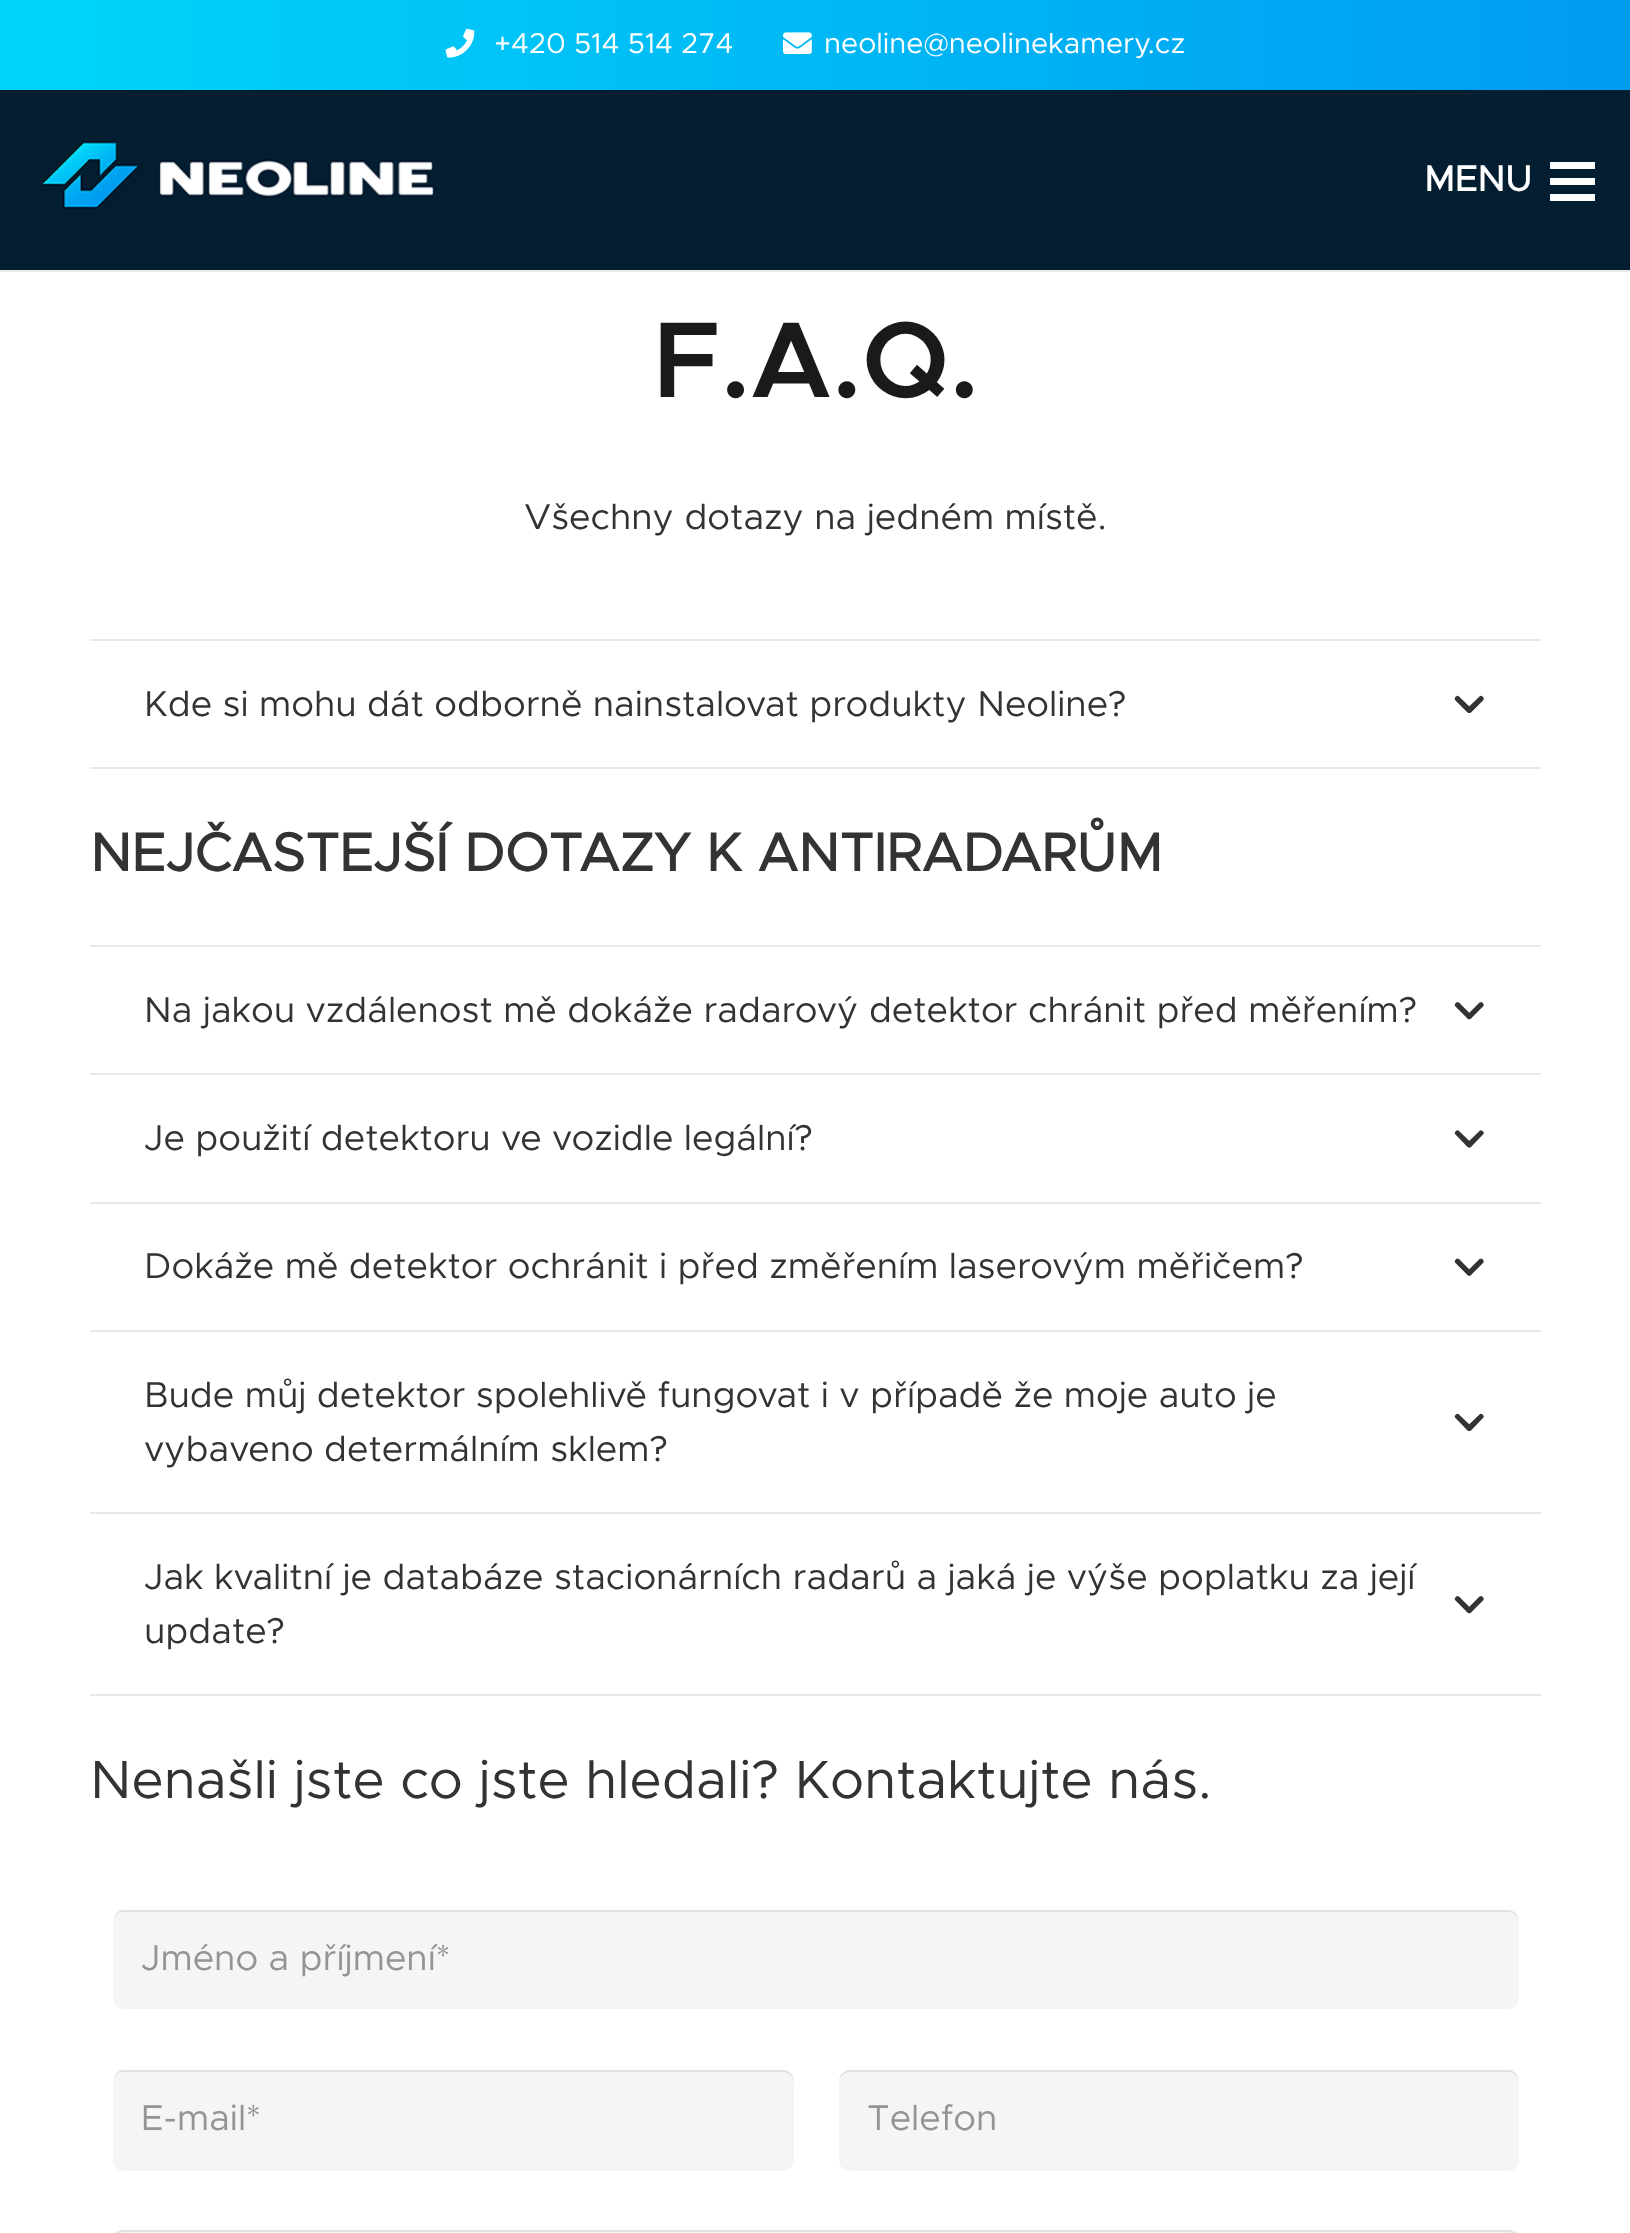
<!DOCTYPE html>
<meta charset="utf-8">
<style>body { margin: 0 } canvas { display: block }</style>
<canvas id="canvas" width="1630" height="2233"></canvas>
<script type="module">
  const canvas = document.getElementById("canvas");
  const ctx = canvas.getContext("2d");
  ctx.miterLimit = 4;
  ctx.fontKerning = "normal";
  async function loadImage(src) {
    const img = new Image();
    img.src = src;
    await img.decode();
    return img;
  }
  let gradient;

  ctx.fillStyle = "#ffffff";
  ctx.fillRect(0, 0, 1630, 2233);
  gradient = ctx.createLinearGradient(0, 45, 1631, 45);
  gradient.addColorStop(0, "#00d5f9");
  gradient.addColorStop(1, "#009cf1");
  ctx.fillStyle = gradient;
  ctx.fillRect(0, 0, 1630, 90);
  ctx.drawImage(await loadImage("img1.png"), 445, 28, 30, 30);
  ctx.font = "28.75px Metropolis";
  ctx.fillStyle = "#ffffff";
  ctx.fillText("+420 514 514 274", 494, 53);
  ctx.drawImage(await loadImage("img2.png"), 783, 32, 29, 22);
  ctx.fillText("neoline@neolinekamery.cz", 824, 53);
  ctx.fillStyle = "#ebebeb";
  ctx.fillRect(0, 270, 1630, 2);
  ctx.fillStyle = "#031e31";
  ctx.fillRect(0, 90, 1630, 180);
  ctx.drawImage(await loadImage("img3.png"), 41, 141, 394, 68);
  ctx.font = "bold 36px Metropolis";
  ctx.fillStyle = "#ffffff";
  ctx.fillText("MENU", 1424, 191);
  ctx.fillRect(1550, 178, 45, 7);
  ctx.fillRect(1550, 162, 45, 7);
  ctx.fillRect(1550, 194, 45, 7);
  ctx.font = "600 108px Metropolis";
  ctx.fillStyle = "#1a1a1a";
  ctx.fillText("F.A.Q.", 653, 397);
  ctx.font = "36px Metropolis";
  ctx.fillStyle = "#333333";
  ctx.fillText("Všechny dotazy na jedném místě.", 524, 529);
  ctx.fillStyle = "#e8e8e8";
  ctx.fillRect(90, 639, 1451, 2);
  ctx.fillRect(90, 767, 1451, 2);
  ctx.fillStyle = "#333333";
  ctx.fillText("Kde si mohu dát odborně nainstalovat produkty Neoline?", 144, 716);
  ctx.beginPath();
  ctx.moveTo(1455.5, 697);
  ctx.lineTo(1456, 696.5);
  ctx.bezierCurveTo(1457, 695.5, 1458.5, 695.5, 1459, 696.5);
  ctx.lineTo(1471.5, 708.5);
  ctx.bezierCurveTo(1472, 709.5, 1472, 711, 1471.5, 711.5);
  ctx.lineTo(1470.5, 712.5);
  ctx.bezierCurveTo(1470, 713, 1468.5, 713, 1467.5, 712.5);
  ctx.lineTo(1455.5, 700.5);
  ctx.bezierCurveTo(1454.5, 699.5, 1454.5, 698, 1455.5, 697);
  ctx.closePath();
  ctx.fill();
  ctx.beginPath();
  ctx.moveTo(1482.5, 696.5);
  ctx.lineTo(1483, 697);
  ctx.bezierCurveTo(1484, 698, 1484, 699.5, 1483, 700.5);
  ctx.lineTo(1471, 712.5);
  ctx.bezierCurveTo(1470, 713, 1468.5, 713, 1468, 712.5);
  ctx.lineTo(1467, 711.5);
  ctx.bezierCurveTo(1466.5, 711, 1466.5, 709.5, 1467, 708.5);
  ctx.lineTo(1479.5, 696.5);
  ctx.bezierCurveTo(1480, 695.5, 1481.5, 695.5, 1482.5, 696.5);
  ctx.closePath();
  ctx.fill();
  ctx.font = "bold 54px Metropolis";
  ctx.fillText("NEJČASTEJŠÍ DOTAZY K ANTIRADARŮM", 90, 871);
  ctx.fillStyle = "#e8e8e8";
  ctx.fillRect(90, 945, 1451, 2);
  ctx.font = "36px Metropolis";
  ctx.fillStyle = "#333333";
  ctx.fillText("Na jakou vzdálenost mě dokáže radarový detektor chránit před měřením?", 144, 1022);
  ctx.beginPath();
  ctx.moveTo(1455.5, 1003.5);
  ctx.lineTo(1456, 1002.5);
  ctx.bezierCurveTo(1457, 1002, 1458.5, 1002, 1459, 1002.5);
  ctx.lineTo(1471.5, 1015);
  ctx.bezierCurveTo(1472, 1015.5, 1472, 1017, 1471.5, 1018);
  ctx.lineTo(1470.5, 1018.5);
  ctx.bezierCurveTo(1470, 1019.5, 1468.5, 1019.5, 1467.5, 1018.5);
  ctx.lineTo(1455.5, 1006.5);
  ctx.bezierCurveTo(1454.5, 1005.5, 1454.5, 1004, 1455.5, 1003.5);
  ctx.closePath();
  ctx.fill();
  ctx.beginPath();
  ctx.moveTo(1482.5, 1002.5);
  ctx.lineTo(1483, 1003.5);
  ctx.bezierCurveTo(1484, 1004, 1484, 1005.5, 1483, 1006.5);
  ctx.lineTo(1471, 1018.5);
  ctx.bezierCurveTo(1470, 1019.5, 1468.5, 1019.5, 1468, 1018.5);
  ctx.lineTo(1467, 1018);
  ctx.bezierCurveTo(1466.5, 1017, 1466.5, 1015.5, 1467, 1015);
  ctx.lineTo(1479.5, 1002.5);
  ctx.bezierCurveTo(1480, 1002, 1481.5, 1002, 1482.5, 1002.5);
  ctx.closePath();
  ctx.fill();
  ctx.fillStyle = "#e8e8e8";
  ctx.fillRect(90, 1073, 1451, 2);
  ctx.fillStyle = "#333333";
  ctx.fillText("Je použití detektoru ve vozidle legální?", 144, 1150);
  ctx.beginPath();
  ctx.moveTo(1455.5, 1131.5);
  ctx.lineTo(1456, 1131);
  ctx.bezierCurveTo(1457, 1130, 1458.5, 1130, 1459, 1131);
  ctx.lineTo(1471.5, 1143);
  ctx.bezierCurveTo(1472, 1144, 1472, 1145.5, 1471.5, 1146);
  ctx.lineTo(1470.5, 1147);
  ctx.bezierCurveTo(1470, 1147.5, 1468.5, 1147.5, 1467.5, 1147);
  ctx.lineTo(1455.5, 1134.5);
  ctx.bezierCurveTo(1454.5, 1134, 1454.5, 1132.5, 1455.5, 1131.5);
  ctx.closePath();
  ctx.fill();
  ctx.beginPath();
  ctx.moveTo(1482.5, 1131);
  ctx.lineTo(1483, 1131.5);
  ctx.bezierCurveTo(1484, 1132.5, 1484, 1134, 1483, 1134.5);
  ctx.lineTo(1471, 1147);
  ctx.bezierCurveTo(1470, 1147.5, 1468.5, 1147.5, 1468, 1147);
  ctx.lineTo(1467, 1146);
  ctx.bezierCurveTo(1466.5, 1145.5, 1466.5, 1144, 1467, 1143);
  ctx.lineTo(1479.5, 1131);
  ctx.bezierCurveTo(1480, 1130, 1481.5, 1130, 1482.5, 1131);
  ctx.closePath();
  ctx.fill();
  ctx.fillStyle = "#e8e8e8";
  ctx.fillRect(90, 1202, 1451, 2);
  ctx.fillStyle = "#333333";
  ctx.fillText("Dokáže mě detektor ochránit i před změřením laserovým měřičem?", 144, 1278);
  ctx.beginPath();
  ctx.moveTo(1455.5, 1260);
  ctx.lineTo(1456, 1259);
  ctx.bezierCurveTo(1457, 1258.5, 1458.5, 1258.5, 1459, 1259);
  ctx.lineTo(1471.5, 1271.5);
  ctx.bezierCurveTo(1472, 1272, 1472, 1273.5, 1471.5, 1274.5);
  ctx.lineTo(1470.5, 1275);
  ctx.bezierCurveTo(1470, 1276, 1468.5, 1276, 1467.5, 1275);
  ctx.lineTo(1455.5, 1263);
  ctx.bezierCurveTo(1454.5, 1262, 1454.5, 1260.5, 1455.5, 1260);
  ctx.closePath();
  ctx.fill();
  ctx.beginPath();
  ctx.moveTo(1482.5, 1259);
  ctx.lineTo(1483, 1260);
  ctx.bezierCurveTo(1484, 1260.5, 1484, 1262, 1483, 1263);
  ctx.lineTo(1471, 1275);
  ctx.bezierCurveTo(1470, 1276, 1468.5, 1276, 1468, 1275);
  ctx.lineTo(1467, 1274.5);
  ctx.bezierCurveTo(1466.5, 1273.5, 1466.5, 1272, 1467, 1271.5);
  ctx.lineTo(1479.5, 1259);
  ctx.bezierCurveTo(1480, 1258.5, 1481.5, 1258.5, 1482.5, 1259);
  ctx.closePath();
  ctx.fill();
  ctx.fillStyle = "#e8e8e8";
  ctx.fillRect(90, 1330, 1451, 2);
  ctx.fillStyle = "#333333";
  ctx.fillText("Bude můj detektor spolehlivě fungovat i v případě že moje auto je", 144, 1407);
  ctx.fillText("vybaveno determálním sklem?", 144, 1461);
  ctx.beginPath();
  ctx.moveTo(1455.5, 1415);
  ctx.lineTo(1456, 1414.5);
  ctx.bezierCurveTo(1457, 1413.5, 1458.5, 1413.5, 1459, 1414.5);
  ctx.lineTo(1471.5, 1426.5);
  ctx.bezierCurveTo(1472, 1427.5, 1472, 1429, 1471.5, 1429.5);
  ctx.lineTo(1470.5, 1430.5);
  ctx.bezierCurveTo(1470, 1431, 1468.5, 1431, 1467.5, 1430.5);
  ctx.lineTo(1455.5, 1418);
  ctx.bezierCurveTo(1454.5, 1417.5, 1454.5, 1416, 1455.5, 1415);
  ctx.closePath();
  ctx.fill();
  ctx.beginPath();
  ctx.moveTo(1482.5, 1414.5);
  ctx.lineTo(1483, 1415);
  ctx.bezierCurveTo(1484, 1416, 1484, 1417.5, 1483, 1418);
  ctx.lineTo(1471, 1430.5);
  ctx.bezierCurveTo(1470, 1431, 1468.5, 1431, 1468, 1430.5);
  ctx.lineTo(1467, 1429.5);
  ctx.bezierCurveTo(1466.5, 1429, 1466.5, 1427.5, 1467, 1426.5);
  ctx.lineTo(1479.5, 1414.5);
  ctx.bezierCurveTo(1480, 1413.5, 1481.5, 1413.5, 1482.5, 1414.5);
  ctx.closePath();
  ctx.fill();
  ctx.fillStyle = "#e8e8e8";
  ctx.fillRect(90, 1512, 1451, 2);
  ctx.fillRect(90, 1694, 1451, 2);
  ctx.fillStyle = "#333333";
  ctx.fillText("Jak kvalitní je databáze stacionárních radarů a jaká je výše poplatku za její", 144, 1589);
  ctx.fillText("update?", 144, 1643);
  ctx.beginPath();
  ctx.moveTo(1455.5, 1597.5);
  ctx.lineTo(1456, 1596.5);
  ctx.bezierCurveTo(1457, 1596, 1458.5, 1596, 1459, 1596.5);
  ctx.lineTo(1471.5, 1609);
  ctx.bezierCurveTo(1472, 1609.5, 1472, 1611, 1471.5, 1612);
  ctx.lineTo(1470.5, 1612.5);
  ctx.bezierCurveTo(1470, 1613.5, 1468.5, 1613.5, 1467.5, 1612.5);
  ctx.lineTo(1455.5, 1600.5);
  ctx.bezierCurveTo(1454.5, 1599.5, 1454.5, 1598, 1455.5, 1597.5);
  ctx.closePath();
  ctx.fill();
  ctx.beginPath();
  ctx.moveTo(1482.5, 1596.5);
  ctx.lineTo(1483, 1597.5);
  ctx.bezierCurveTo(1484, 1598, 1484, 1599.5, 1483, 1600.5);
  ctx.lineTo(1471, 1612.5);
  ctx.bezierCurveTo(1470, 1613.5, 1468.5, 1613.5, 1468, 1612.5);
  ctx.lineTo(1467, 1612);
  ctx.bezierCurveTo(1466.5, 1611, 1466.5, 1609.5, 1467, 1609);
  ctx.lineTo(1479.5, 1596.5);
  ctx.bezierCurveTo(1480, 1596, 1481.5, 1596, 1482.5, 1596.5);
  ctx.closePath();
  ctx.fill();
  ctx.font = "54px Metropolis";
  ctx.fillText("Nenašli jste co jste hledali? Kontaktujte nás.", 90, 1798);
  ctx.fillStyle = "#f5f5f5";
  ctx.beginPath();
  ctx.roundRect(113, 1910, 1406, 99, 11);
  ctx.fill();
  ctx.fillStyle = "rgba(0, 0, 0, 0.08)";
  ctx.beginPath();
  ctx.moveTo(123, 1912);
  ctx.lineTo(1508, 1912);
  ctx.bezierCurveTo(1514, 1912, 1519, 1917, 1519, 1923);
  ctx.lineTo(1519, 1921);
  ctx.bezierCurveTo(1519, 1915, 1514, 1910, 1508, 1910);
  ctx.lineTo(124, 1910);
  ctx.bezierCurveTo(119, 1910, 115, 1913, 114, 1917);
  ctx.bezierCurveTo(116, 1914, 119, 1912, 123, 1912);
  ctx.closePath();
  ctx.fill();
  ctx.font = "36px Metropolis";
  ctx.fillStyle = "#949494";
  ctx.fillText("Jméno a příjmení*", 141, 1970);
  ctx.fillStyle = "#f5f5f5";
  ctx.beginPath();
  ctx.roundRect(113, 2070, 681, 101, 11);
  ctx.fill();
  ctx.fillStyle = "rgba(0, 0, 0, 0.08)";
  ctx.beginPath();
  ctx.moveTo(123, 2072);
  ctx.lineTo(783, 2072);
  ctx.bezierCurveTo(789, 2072, 794, 2077, 794, 2083);
  ctx.lineTo(794, 2081);
  ctx.bezierCurveTo(794, 2075, 789, 2070, 783, 2070);
  ctx.lineTo(124, 2070);
  ctx.bezierCurveTo(119, 2070, 115, 2073, 114, 2077);
  ctx.bezierCurveTo(116, 2074, 119, 2072, 123, 2072);
  ctx.closePath();
  ctx.fill();
  ctx.fillStyle = "#949494";
  ctx.fillText("E-mail*", 141, 2130);
  ctx.fillStyle = "#f5f5f5";
  ctx.beginPath();
  ctx.roundRect(839, 2070, 680, 101, 11);
  ctx.fill();
  ctx.fillStyle = "rgba(0, 0, 0, 0.08)";
  ctx.beginPath();
  ctx.moveTo(850, 2072);
  ctx.lineTo(1508, 2072);
  ctx.bezierCurveTo(1514, 2072, 1519, 2077, 1519, 2083);
  ctx.bezierCurveTo(1519, 2076, 1515, 2070, 1508, 2070);
  ctx.lineTo(850, 2070);
  ctx.bezierCurveTo(843, 2070, 839, 2076, 839, 2083);
  ctx.bezierCurveTo(839, 2077, 844, 2072, 850, 2072);
  ctx.closePath();
  ctx.fill();
  ctx.fillStyle = "#949494";
  ctx.fillText("Telefon", 867, 2130);
  ctx.fillStyle = "#f5f5f5";
  ctx.beginPath();
  ctx.roundRect(113, 2230, 1406, 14, 11);
  ctx.fill();
  ctx.fillStyle = "rgba(0, 0, 0, 0.08)";
  ctx.beginPath();
  ctx.moveTo(123, 2232);
  ctx.lineTo(1508, 2232);
  ctx.bezierCurveTo(1514, 2232, 1519, 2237, 1519, 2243);
  ctx.lineTo(1519, 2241);
  ctx.bezierCurveTo(1519, 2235, 1514, 2230, 1508, 2230);
  ctx.lineTo(124, 2230);
  ctx.bezierCurveTo(119, 2230, 115, 2233, 114, 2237);
  ctx.bezierCurveTo(116, 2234, 119, 2232, 123, 2232);
  ctx.closePath();
  ctx.fill();
</script>
